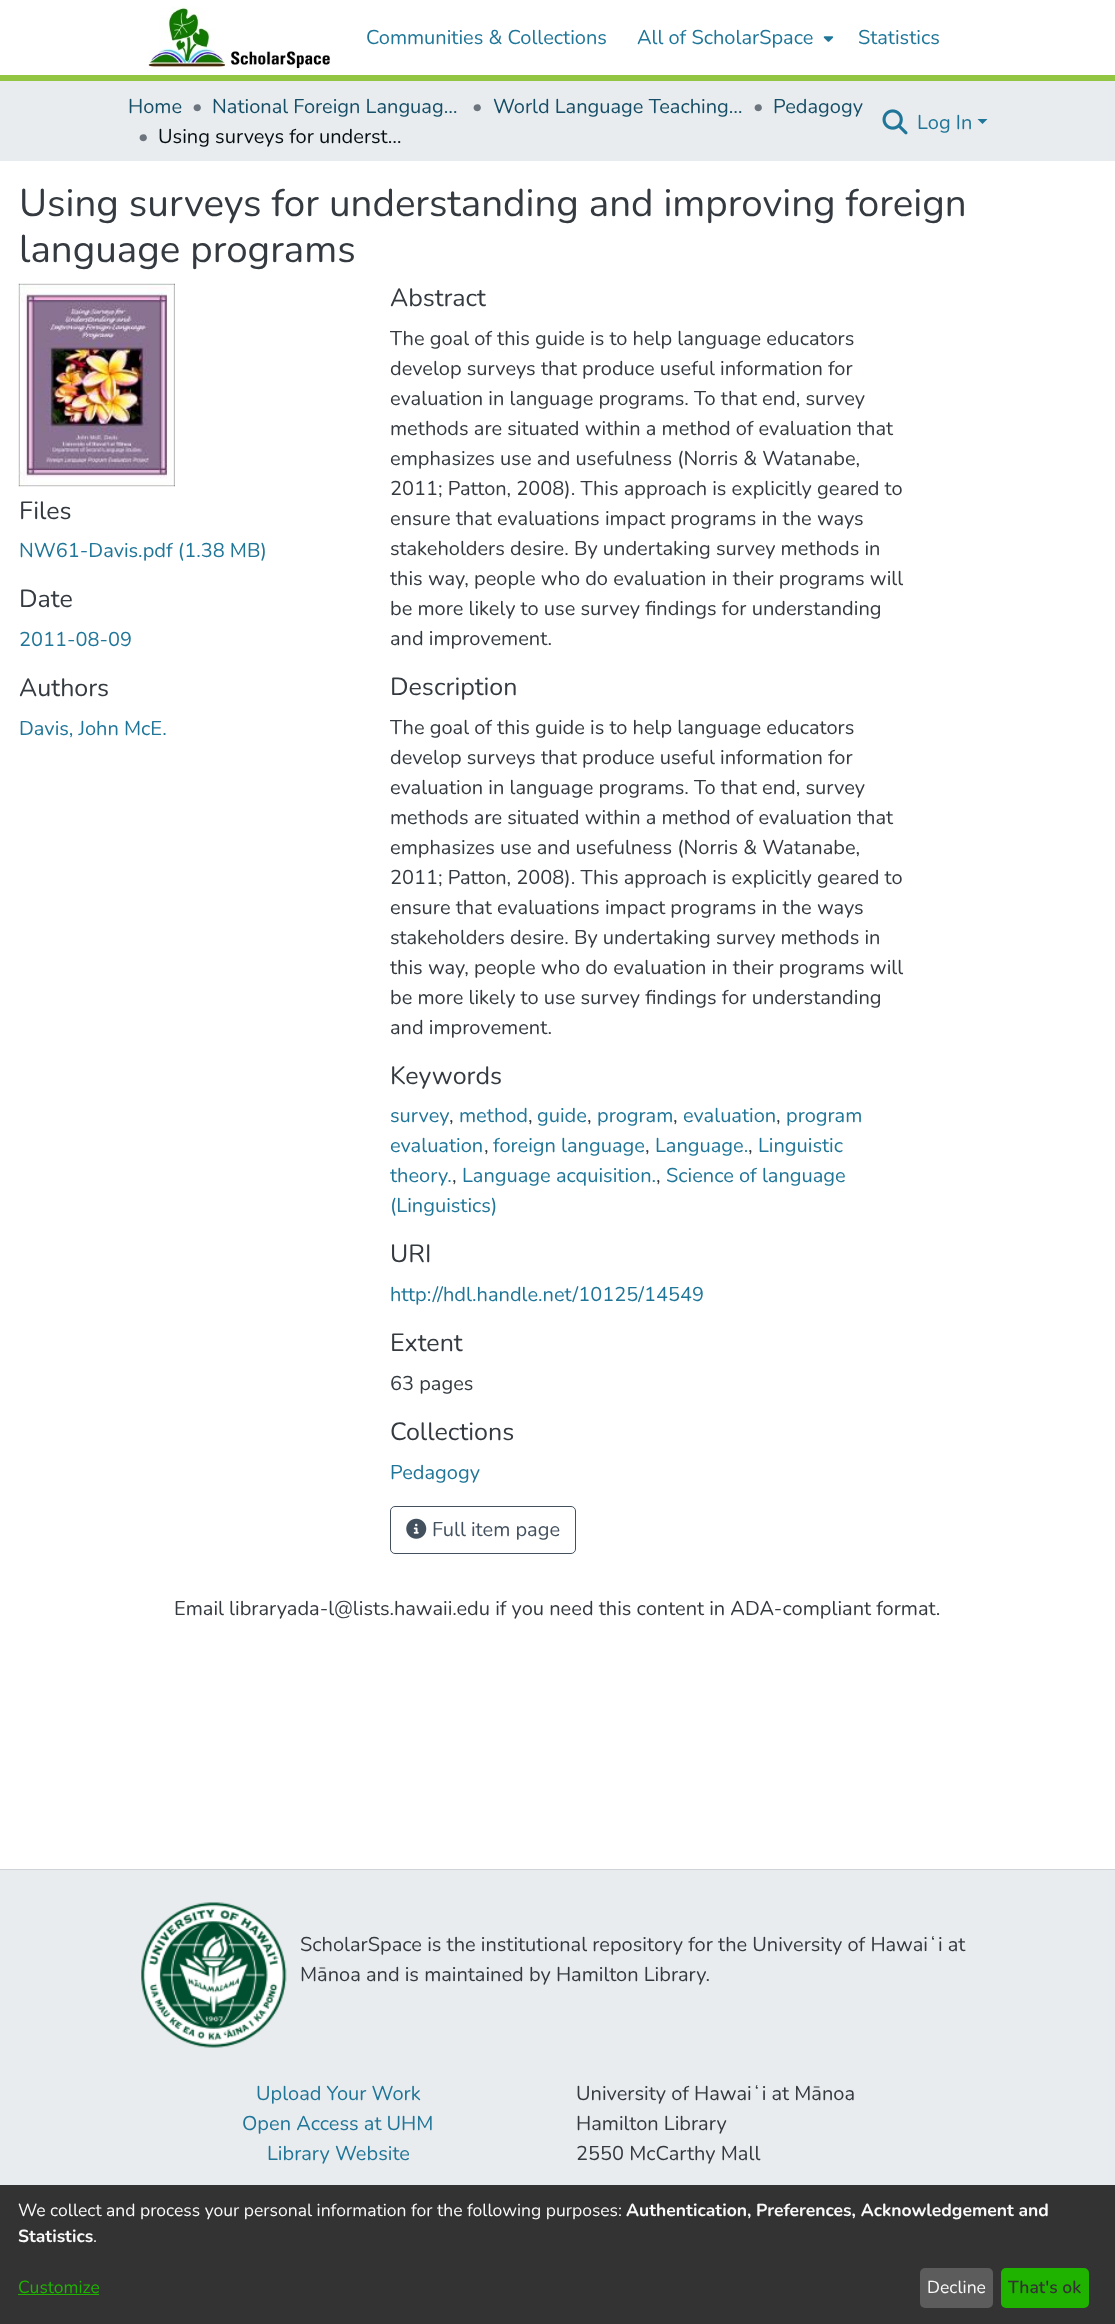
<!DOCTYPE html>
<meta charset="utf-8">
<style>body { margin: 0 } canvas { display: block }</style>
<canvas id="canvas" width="1115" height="2324"></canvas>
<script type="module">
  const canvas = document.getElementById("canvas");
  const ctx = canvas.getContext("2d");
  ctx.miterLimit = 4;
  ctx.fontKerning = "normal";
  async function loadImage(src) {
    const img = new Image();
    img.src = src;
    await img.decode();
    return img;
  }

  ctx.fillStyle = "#ffffff";
  ctx.fillRect(0, 0, 1115, 2324);
  ctx.fillStyle = "#92c642";
  ctx.fillRect(0, 75, 1115, 6);
  ctx.drawImage(await loadImage("img1.png"), 148, 6, 183, 63);
  ctx.font = "20px Nunito";
  ctx.fillStyle = "#207698";
  ctx.fillText("Communities & Collections", 366, 44);
  ctx.fillText("All of ScholarSpace", 637, 44);
  ctx.drawImage(await loadImage("img2.png"), 823, 36, 11, 6);
  ctx.fillText("Statistics", 858, 44);
  ctx.fillStyle = "#e9ecef";
  ctx.fillRect(0, 81, 1115, 80);
  ctx.drawImage(await loadImage("img3.png"), 882, 109, 26, 26);
  ctx.fillStyle = "#207698";
  ctx.fillText("Log In", 917, 129);
  ctx.beginPath();
  ctx.moveTo(977.5, 119);
  ctx.lineTo(987.5, 119);
  ctx.lineTo(982.5, 124);
  ctx.closePath();
  ctx.fill();
  ctx.fillStyle = "#154e66";
  ctx.fillText("Home", 128, 113);
  ctx.fillStyle = "#6c757d";
  ctx.fillText("•", 192, 113);
  ctx.fillStyle = "#154e66";
  ctx.fillText("National Foreign Languag…", 212, 113);
  ctx.fillStyle = "#6c757d";
  ctx.fillText("•", 472, 113);
  ctx.fillStyle = "#154e66";
  ctx.fillText("World Language Teaching…", 493, 113);
  ctx.fillStyle = "#6c757d";
  ctx.fillText("•", 753, 113);
  ctx.fillStyle = "#154e66";
  ctx.fillText("Pedagogy", 773, 113);
  ctx.fillStyle = "#6c757d";
  ctx.fillText("•", 138, 143);
  ctx.fillStyle = "#040d11";
  ctx.fillText("Using surveys for underst…", 158, 143);
  ctx.font = "38.5px Nunito";
  ctx.fillStyle = "#343a40";
  ctx.fillText("Using surveys for understanding and improving foreign", 19, 216);
  ctx.fillText("language programs", 19, 262);
  ctx.drawImage(await loadImage("img4.png"), 18, 283, 157, 204);
  ctx.font = "25px Nunito";
  ctx.fillText("Files", 19, 519);
  ctx.font = "20px Nunito";
  ctx.fillStyle = "#207698";
  ctx.fillText("NW61-Davis.pdf (1.38 MB)", 19, 557);
  ctx.font = "25px Nunito";
  ctx.fillStyle = "#343a40";
  ctx.fillText("Date", 19, 607);
  ctx.font = "20px Nunito";
  ctx.fillStyle = "#207698";
  ctx.fillText("2011-08-09", 19, 646);
  ctx.font = "25px Nunito";
  ctx.fillStyle = "#343a40";
  ctx.fillText("Authors", 19, 696);
  ctx.font = "20px Nunito";
  ctx.fillStyle = "#207698";
  ctx.fillText("Davis, John McE.", 19, 735);
  ctx.font = "25px Nunito";
  ctx.fillStyle = "#343a40";
  ctx.fillText("Abstract", 390, 306);
  ctx.font = "20px Nunito";
  ctx.fillText("The goal of this guide is to help language educators", 390, 345);
  ctx.fillText("develop surveys that produce useful information for", 390, 375);
  ctx.fillText("evaluation in language programs. To that end, survey", 390, 405);
  ctx.fillText("methods are situated within a method of evaluation that", 390, 435);
  ctx.fillText("emphasizes use and usefulness (Norris & Watanabe,", 390, 465);
  ctx.fillText("2011; Patton, 2008). This approach is explicitly geared to", 390, 495);
  ctx.fillText("ensure that evaluations impact programs in the ways", 390, 525);
  ctx.fillText("stakeholders desire. By undertaking survey methods in", 390, 555);
  ctx.fillText("this way, people who do evaluation in their programs will", 390, 585);
  ctx.fillText("be more likely to use survey findings for understanding", 390, 615);
  ctx.fillText("and improvement.", 390, 645);
  ctx.font = "25px Nunito";
  ctx.fillText("Description", 390, 695);
  ctx.font = "20px Nunito";
  ctx.fillText("The goal of this guide is to help language educators", 390, 734);
  ctx.fillText("develop surveys that produce useful information for", 390, 764);
  ctx.fillText("evaluation in language programs. To that end, survey", 390, 794);
  ctx.fillText("methods are situated within a method of evaluation that", 390, 824);
  ctx.fillText("emphasizes use and usefulness (Norris & Watanabe,", 390, 854);
  ctx.fillText("2011; Patton, 2008). This approach is explicitly geared to", 390, 884);
  ctx.fillText("ensure that evaluations impact programs in the ways", 390, 914);
  ctx.fillText("stakeholders desire. By undertaking survey methods in", 390, 944);
  ctx.fillText("this way, people who do evaluation in their programs will", 390, 974);
  ctx.fillText("be more likely to use survey findings for understanding", 390, 1004);
  ctx.fillText("and improvement.", 390, 1034);
  ctx.font = "25px Nunito";
  ctx.fillText("Keywords", 390, 1084);
  ctx.font = "20px Nunito";
  ctx.fillStyle = "#207698";
  ctx.fillText("survey", 390, 1122);
  ctx.fillStyle = "#343a40";
  ctx.fillText(",", 449, 1122);
  ctx.fillStyle = "#207698";
  ctx.fillText("method", 459, 1122);
  ctx.fillStyle = "#343a40";
  ctx.fillText(",", 528, 1122);
  ctx.fillStyle = "#207698";
  ctx.fillText("guide", 537, 1122);
  ctx.fillStyle = "#343a40";
  ctx.fillText(",", 587, 1122);
  ctx.fillStyle = "#207698";
  ctx.fillText("program", 597, 1122);
  ctx.fillStyle = "#343a40";
  ctx.fillText(",", 673, 1122);
  ctx.fillStyle = "#207698";
  ctx.fillText("evaluation", 683, 1122);
  ctx.fillStyle = "#343a40";
  ctx.fillText(",", 776, 1122);
  ctx.fillStyle = "#207698";
  ctx.fillText("program", 786, 1122);
  ctx.fillText("evaluation", 390, 1152);
  ctx.fillStyle = "#343a40";
  ctx.fillText(",", 484, 1152);
  ctx.fillStyle = "#207698";
  ctx.fillText("foreign language", 493, 1152);
  ctx.fillStyle = "#343a40";
  ctx.fillText(",", 645, 1152);
  ctx.fillStyle = "#207698";
  ctx.fillText("Language.", 655, 1152);
  ctx.fillStyle = "#343a40";
  ctx.fillText(",", 748, 1152);
  ctx.fillStyle = "#207698";
  ctx.fillText("Linguistic", 758, 1152);
  ctx.fillText("theory.", 390, 1182);
  ctx.fillStyle = "#343a40";
  ctx.fillText(",", 452, 1182);
  ctx.fillStyle = "#207698";
  ctx.fillText("Language acquisition.", 462, 1182);
  ctx.fillStyle = "#343a40";
  ctx.fillText(",", 656, 1182);
  ctx.fillStyle = "#207698";
  ctx.fillText("Science of language", 666, 1182);
  ctx.fillText("(Linguistics)", 390, 1212);
  ctx.font = "25px Nunito";
  ctx.fillStyle = "#343a40";
  ctx.fillText("URI", 390, 1262);
  ctx.font = "20px Nunito";
  ctx.fillStyle = "#207698";
  ctx.fillText("http://hdl.handle.net/10125/14549", 390, 1301);
  ctx.font = "25px Nunito";
  ctx.fillStyle = "#343a40";
  ctx.fillText("Extent", 390, 1351);
  ctx.font = "20px Nunito";
  ctx.fillText("63 pages", 390, 1390);
  ctx.font = "25px Nunito";
  ctx.fillText("Collections", 390, 1440);
  ctx.font = "20px Nunito";
  ctx.fillStyle = "#207698";
  ctx.fillText("Pedagogy", 390, 1479);
  ctx.beginPath();
  ctx.roundRect(390.5, 1506.5, 185, 47, 4.5);
  ctx.strokeStyle = "#43515f";
  ctx.stroke();
  ctx.drawImage(await loadImage("img5.png"), 406, 1518, 21, 21);
  ctx.fillStyle = "#43515f";
  ctx.fillText("Full item page", 432, 1536);
  ctx.fillStyle = "#343a40";
  ctx.fillText("Email libraryada-l@lists.hawaii.edu if you need this content in ADA-compliant format.", 174, 1615);
  ctx.fillStyle = "#ced4da";
  ctx.fillRect(0, 1869, 1115, 1);
  ctx.fillStyle = "#e9ecef";
  ctx.fillRect(0, 1870, 1115, 315);
  ctx.drawImage(await loadImage("img6.png"), 141, 1902, 146, 146);
  ctx.fillStyle = "#343a40";
  ctx.fillText("ScholarSpace is the institutional repository for the University of Hawaiʻi at", 300, 1951);
  ctx.fillText("Mānoa and is maintained by Hamilton Library.", 300, 1981);
  ctx.fillStyle = "#207698";
  ctx.fillText("Upload Your Work", 256, 2100);
  ctx.fillText("Open Access at UHM", 242, 2130);
  ctx.fillText("Library Website", 267, 2160);
  ctx.fillStyle = "#343a40";
  ctx.fillText("University of Hawaiʻi at Mānoa", 576, 2100);
  ctx.fillText("Hamilton Library", 576, 2130);
  ctx.fillText("2550 McCarthy Mall", 576, 2160);
  ctx.fillStyle = "#333333";
  ctx.fillRect(0, 2185, 1115, 139);
  ctx.font = "17.5px Nunito";
  ctx.fillStyle = "#fafafa";
  ctx.fillText("We collect and process your personal information for the following purposes:", 18, 2216);
  ctx.font = "bold 17.5px Nunito";
  ctx.fillText("Authentication, Preferences, Acknowledgement and", 626, 2216);
  ctx.fillText("Statistics", 18, 2242);
  ctx.font = "17.5px Nunito";
  ctx.fillText(".", 93, 2242);
  ctx.fillStyle = "#1fb300";
  ctx.fillText("Customize", 18, 2293);
  ctx.fillRect(18, 2294, 81, 1);
  ctx.fillStyle = "#5c5c5c";
  ctx.beginPath();
  ctx.roundRect(920, 2268, 73, 40, 5);
  ctx.fill();
  ctx.fillStyle = "#fafafa";
  ctx.fillText("Decline", 927, 2293);
  ctx.fillStyle = "#1fb300";
  ctx.beginPath();
  ctx.roundRect(1001, 2268, 88, 40, 5);
  ctx.fill();
  ctx.font = "600 17.5px Nunito";
  ctx.fillStyle = "#333333";
  ctx.fillText("That's ok", 1008, 2293);
</script>
